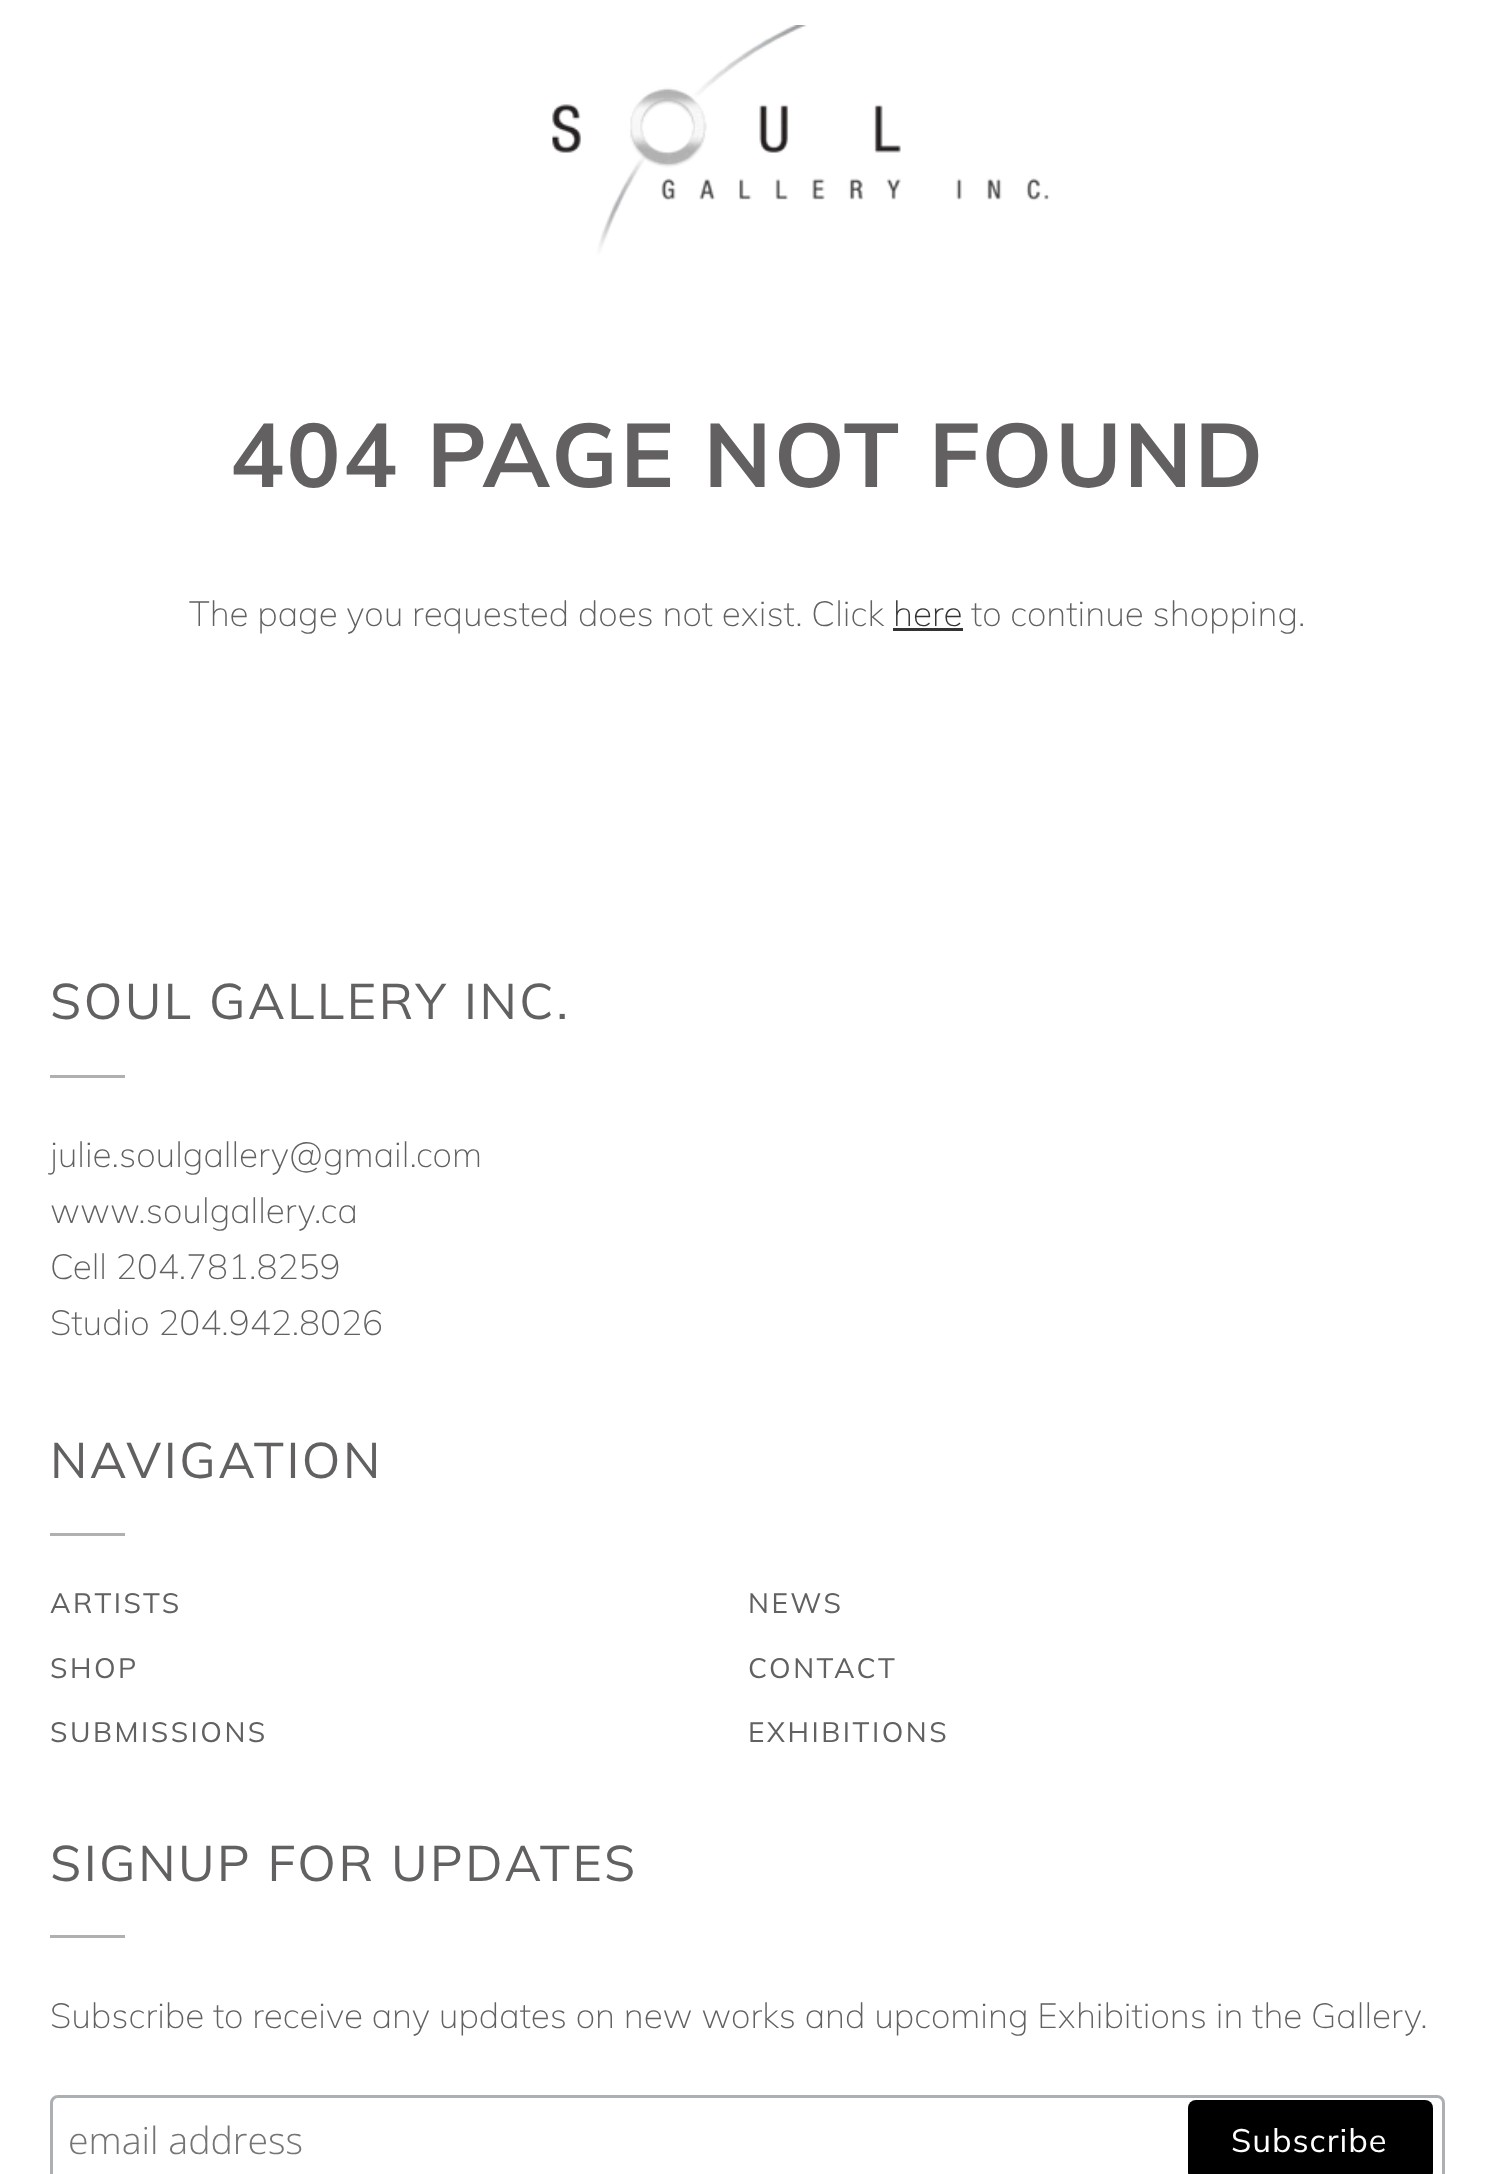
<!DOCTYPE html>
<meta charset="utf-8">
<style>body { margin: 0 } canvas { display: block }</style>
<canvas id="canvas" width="1495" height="2174"></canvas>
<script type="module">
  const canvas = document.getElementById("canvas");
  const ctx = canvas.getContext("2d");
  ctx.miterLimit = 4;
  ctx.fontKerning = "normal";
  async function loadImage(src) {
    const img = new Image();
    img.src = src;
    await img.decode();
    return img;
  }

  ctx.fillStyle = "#ffffff";
  ctx.fillRect(0, 0, 1495, 2174);
  ctx.drawImage(await loadImage("img1.png"), 552, 25, 498, 230);
  ctx.letterSpacing = "2.5px";
  ctx.font = "bold 90px Muli";
  ctx.fillStyle = "#636061";
  ctx.fillText("404 PAGE NOT FOUND", 230, 487);
  ctx.letterSpacing = "0px";
  ctx.font = "200 35px Muli";
  ctx.fillText("The page you requested does not exist. Click", 189, 626);
  ctx.fillStyle = "#353232";
  ctx.fillText("here", 893, 626);
  ctx.fillRect(893, 628, 70, 3);
  ctx.fillStyle = "#636061";
  ctx.fillText("to continue shopping.", 971, 626);
  ctx.letterSpacing = "2.5px";
  ctx.font = "50px Muli";
  ctx.fillText("SOUL GALLERY INC.", 50, 1019);
  ctx.fillStyle = "#b1b0b0";
  ctx.fillRect(50, 1075, 75, 3);
  ctx.letterSpacing = "0px";
  ctx.font = "200 35px Muli";
  ctx.fillStyle = "#636061";
  ctx.fillText("julie.soulgallery@gmail.com", 50, 1167);
  ctx.fillText("www.soulgallery.ca", 50, 1223);
  ctx.fillText("Cell 204.781.8259", 50, 1279);
  ctx.fillText("Studio 204.942.8026", 50, 1335);
  ctx.letterSpacing = "2.5px";
  ctx.font = "50px Muli";
  ctx.fillText("NAVIGATION", 50, 1478);
  ctx.fillStyle = "#b1b0b0";
  ctx.fillRect(50, 1533, 75, 3);
  ctx.font = "28px Muli";
  ctx.fillStyle = "#636061";
  ctx.fillText("ARTISTS", 50, 1613);
  ctx.fillText("NEWS", 748, 1613);
  ctx.fillText("SHOP", 50, 1678);
  ctx.fillText("CONTACT", 748, 1678);
  ctx.fillText("SUBMISSIONS", 50, 1742);
  ctx.fillText("EXHIBITIONS", 748, 1742);
  ctx.font = "50px Muli";
  ctx.fillText("SIGNUP FOR UPDATES", 50, 1881);
  ctx.fillStyle = "#b1b0b0";
  ctx.fillRect(50, 1935, 75, 3);
  ctx.letterSpacing = "0px";
  ctx.font = "200 35px Muli";
  ctx.fillStyle = "#636061";
  ctx.fillText("Subscribe to receive any updates on new works and upcoming Exhibitions in the Gallery.", 50, 2028);
  ctx.beginPath();
  ctx.roundRect(51.5, 2096.5, 1392, 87, 6.5);
  ctx.strokeStyle = "#abb0b2";
  ctx.lineWidth = 3;
  ctx.stroke();
  ctx.font = "300 37.5px Open Sans";
  ctx.fillStyle = "#757575";
  ctx.fillText("email address", 68, 2154);
  ctx.fillStyle = "#000000";
  ctx.beginPath();
  ctx.roundRect(1188, 2100, 245, 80, 8);
  ctx.fill();
  ctx.letterSpacing = "1px";
  ctx.font = "32.5px Muli";
  ctx.fillStyle = "#ffffff";
  ctx.fillText("Subscribe", 1231, 2152);
</script>
